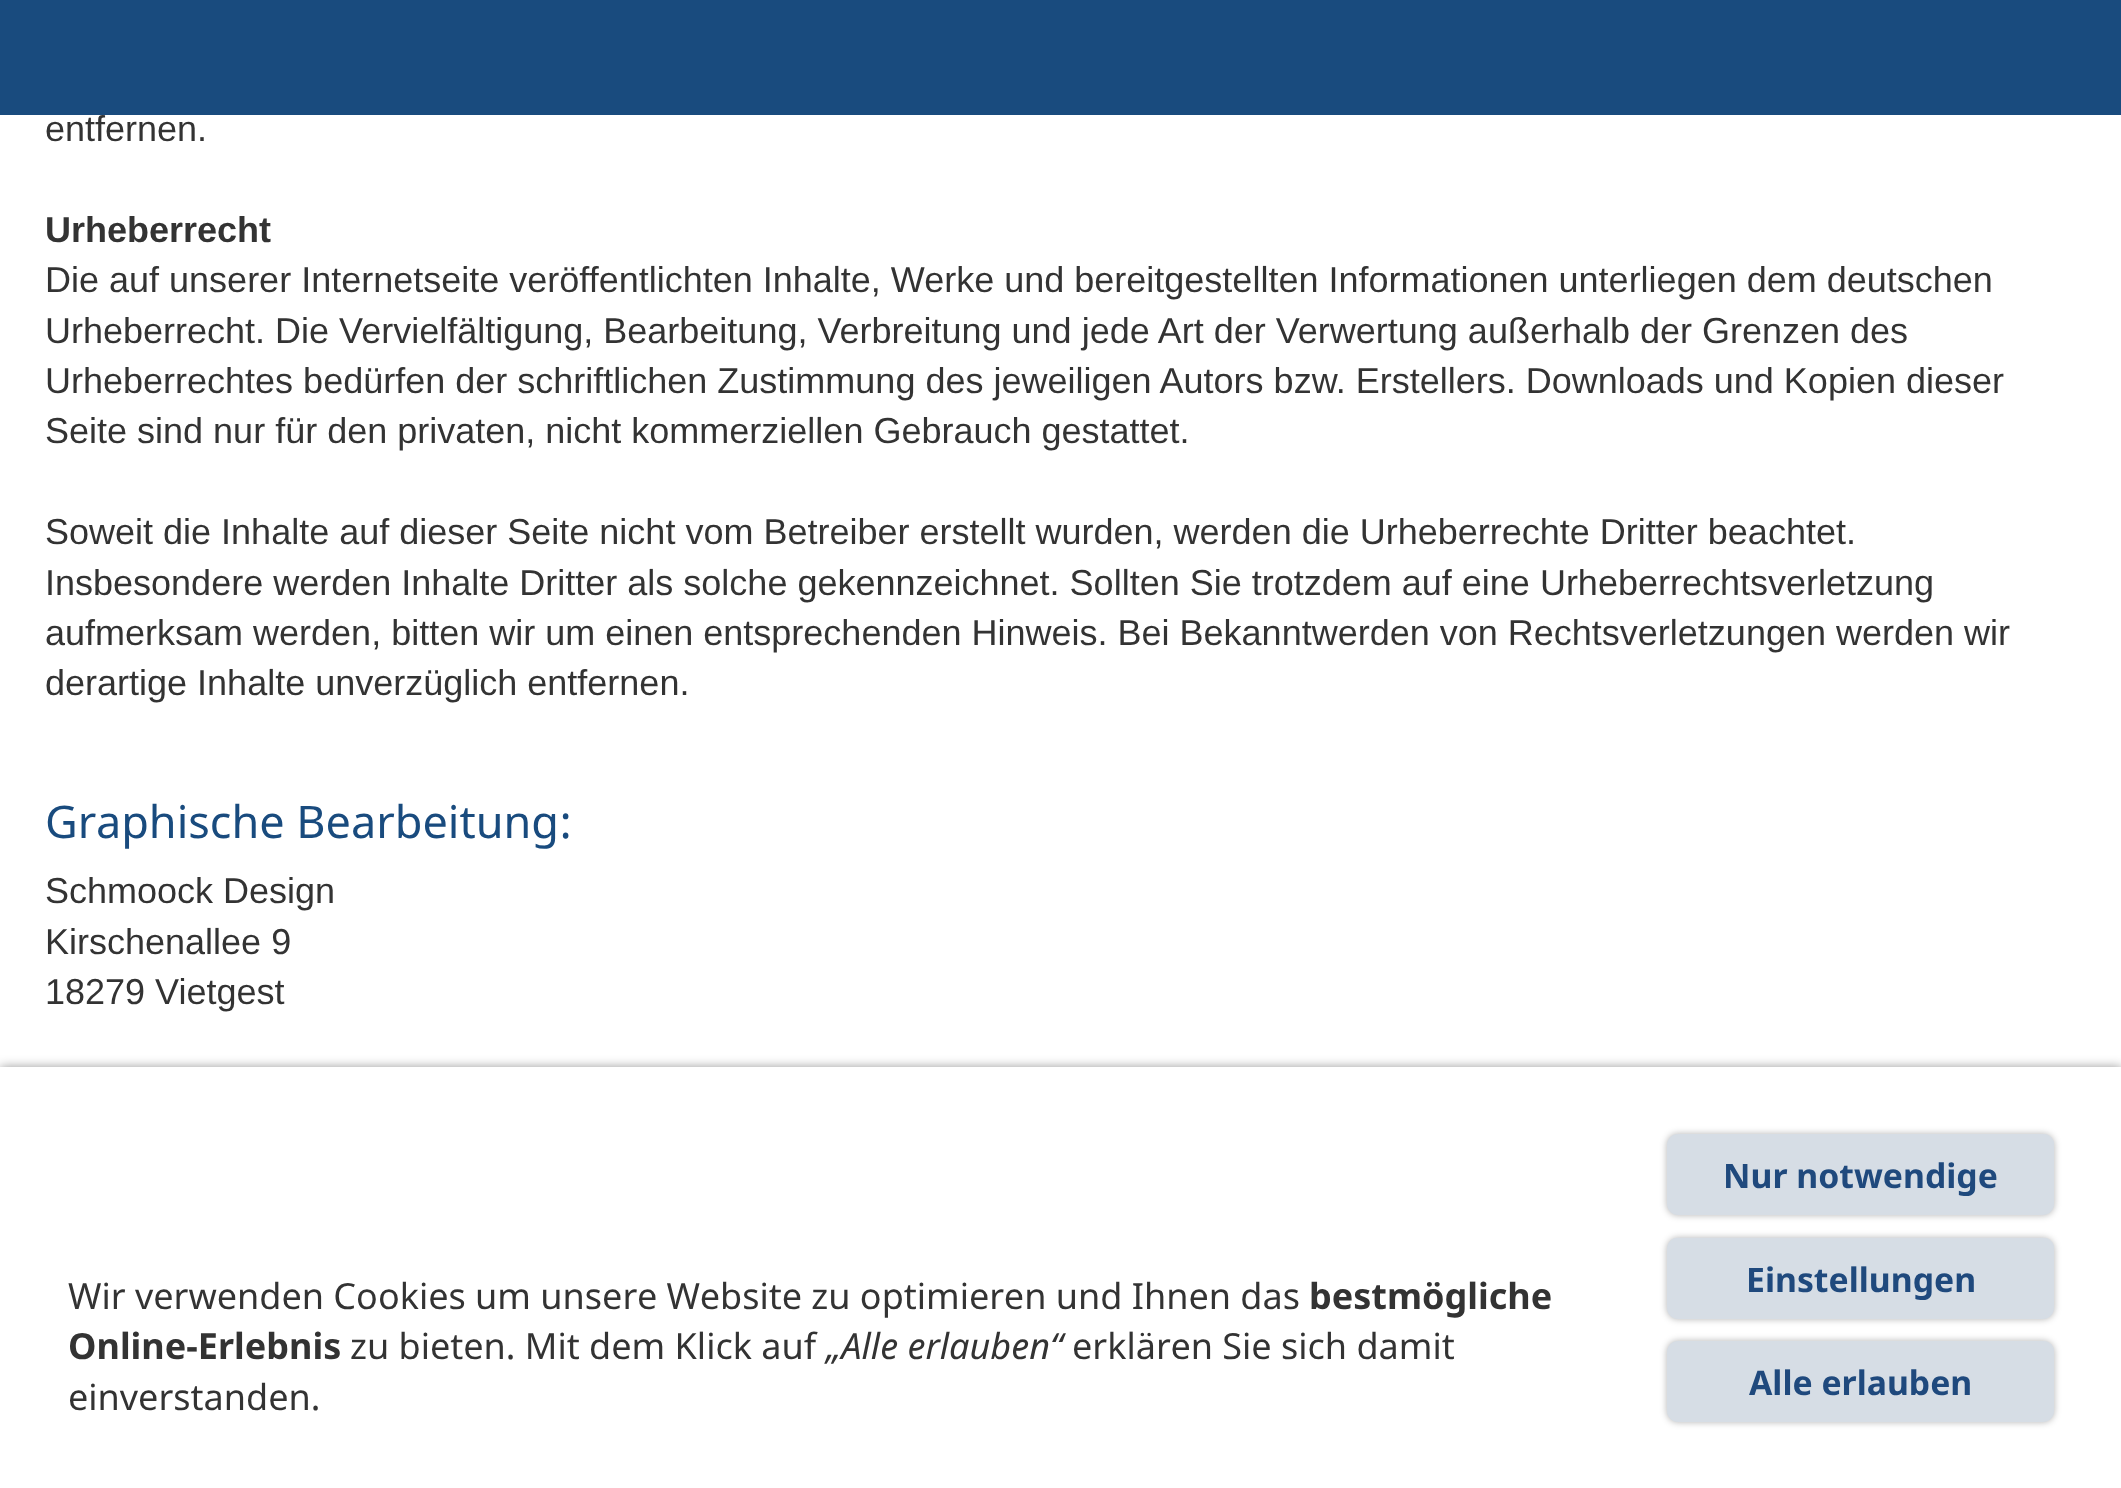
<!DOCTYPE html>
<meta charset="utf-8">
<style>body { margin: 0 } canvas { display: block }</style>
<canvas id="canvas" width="2121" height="1488"></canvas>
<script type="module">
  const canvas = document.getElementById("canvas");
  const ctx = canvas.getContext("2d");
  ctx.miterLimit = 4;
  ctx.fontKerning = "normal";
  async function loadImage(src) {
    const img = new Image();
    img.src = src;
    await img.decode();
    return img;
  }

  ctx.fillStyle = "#ffffff";
  ctx.fillRect(0, 0, 2121, 1488);
  ctx.font = "36px Liberation Sans";
  ctx.fillStyle = "#333333";
  ctx.fillText("entfernen.", 45, 141);
  ctx.fillStyle = "#194b7e";
  ctx.fillRect(0, 0, 2121, 115);
  ctx.font = "bold 36px Liberation Sans";
  ctx.fillStyle = "#333333";
  ctx.fillText("Urheberrecht", 45, 242);
  ctx.font = "36px Liberation Sans";
  ctx.fillText("Die auf unserer Internetseite veröffentlichten Inhalte, Werke und bereitgestellten Informationen unterliegen dem deutschen", 45, 292);
  ctx.fillText("Urheberrecht. Die Vervielfältigung, Bearbeitung, Verbreitung und jede Art der Verwertung außerhalb der Grenzen des", 45, 343);
  ctx.fillText("Urheberrechtes bedürfen der schriftlichen Zustimmung des jeweiligen Autors bzw. Erstellers. Downloads und Kopien dieser", 45, 393);
  ctx.fillText("Seite sind nur für den privaten, nicht kommerziellen Gebrauch gestattet.", 45, 443);
  ctx.fillText("Soweit die Inhalte auf dieser Seite nicht vom Betreiber erstellt wurden, werden die Urheberrechte Dritter beachtet.", 45, 544);
  ctx.fillText("Insbesondere werden Inhalte Dritter als solche gekennzeichnet. Sollten Sie trotzdem auf eine Urheberrechtsverletzung", 45, 595);
  ctx.fillText("aufmerksam werden, bitten wir um einen entsprechenden Hinweis. Bei Bekanntwerden von Rechtsverletzungen werden wir", 45, 645);
  ctx.fillText("derartige Inhalte unverzüglich entfernen.", 45, 695);
  ctx.font = "45px Noto Sans";
  ctx.fillStyle = "#194b7e";
  ctx.fillText("Graphische Bearbeitung:", 45, 838);
  ctx.font = "36px Liberation Sans";
  ctx.fillStyle = "#333333";
  ctx.fillText("Schmoock Design", 45, 903);
  ctx.fillText("Kirschenallee 9", 45, 954);
  ctx.fillText("18279 Vietgest", 45, 1004);
  ctx.fillStyle = "rgba(0, 0, 0, 0.4)";
  ctx.filter = "blur(5.5px)";
  ctx.beginPath();
  ctx.rect(0, 1067, 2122, 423);
  ctx.fill();
  ctx.filter = "none";
  ctx.fillStyle = "#ffffff";
  ctx.fillRect(0, 1067, 2121, 421);
  ctx.font = "36px Noto Sans";
  ctx.fillStyle = "#333333";
  ctx.fillText("Wir verwenden Cookies um unsere Website zu optimieren und Ihnen das", 68, 1309);
  ctx.font = "bold 36px Noto Sans";
  ctx.fillText("bestmögliche", 1309, 1309);
  ctx.fillText("Online-Erlebnis", 68, 1359);
  ctx.font = "36px Noto Sans";
  ctx.fillText("zu bieten. Mit dem Klick auf", 350, 1359);
  ctx.font = "italic 36px Noto Sans";
  ctx.fillText("„Alle erlauben“", 826, 1359);
  ctx.font = "36px Noto Sans";
  ctx.fillText("erklären Sie sich damit", 1072, 1359);
  ctx.fillText("einverstanden.", 68, 1410);
  ctx.fillStyle = "rgba(0, 0, 0, 0.3)";
  ctx.filter = "blur(3.5px)";
  ctx.beginPath();
  ctx.roundRect(1667, 1134, 387, 81, 11);
  ctx.fill();
  ctx.filter = "none";
  ctx.fillStyle = "#d6dde5";
  ctx.beginPath();
  ctx.roundRect(1667, 1134, 387, 81, 11);
  ctx.fill();
  ctx.drawImage(await loadImage("img1.png"), 2044, 1134, 10, 10);
  ctx.font = "bold 33.75px Noto Sans";
  ctx.fillStyle = "#1f497d";
  ctx.fillText("Nur notwendige", 1723, 1188);
  ctx.fillStyle = "rgba(0, 0, 0, 0.3)";
  ctx.filter = "blur(3.5px)";
  ctx.beginPath();
  ctx.roundRect(1667, 1238, 387, 81, 11);
  ctx.fill();
  ctx.filter = "none";
  ctx.fillStyle = "#d6dde5";
  ctx.beginPath();
  ctx.roundRect(1667, 1238, 387, 81, 11);
  ctx.fill();
  ctx.drawImage(await loadImage("img2.png"), 1668, 1237, 386, 11);
  ctx.fillStyle = "#1f497d";
  ctx.fillText("Einstellungen", 1746, 1292);
  ctx.fillStyle = "rgba(0, 0, 0, 0.3)";
  ctx.filter = "blur(3.5px)";
  ctx.beginPath();
  ctx.roundRect(1667, 1341, 387, 81, 11);
  ctx.fill();
  ctx.filter = "none";
  ctx.fillStyle = "#d6dde5";
  ctx.beginPath();
  ctx.roundRect(1667, 1341, 387, 81, 11);
  ctx.fill();
  ctx.drawImage(await loadImage("img1.png"), 2044, 1341, 10, 10);
  ctx.fillStyle = "#1f497d";
  ctx.fillText("Alle erlauben", 1749, 1395);
</script>
